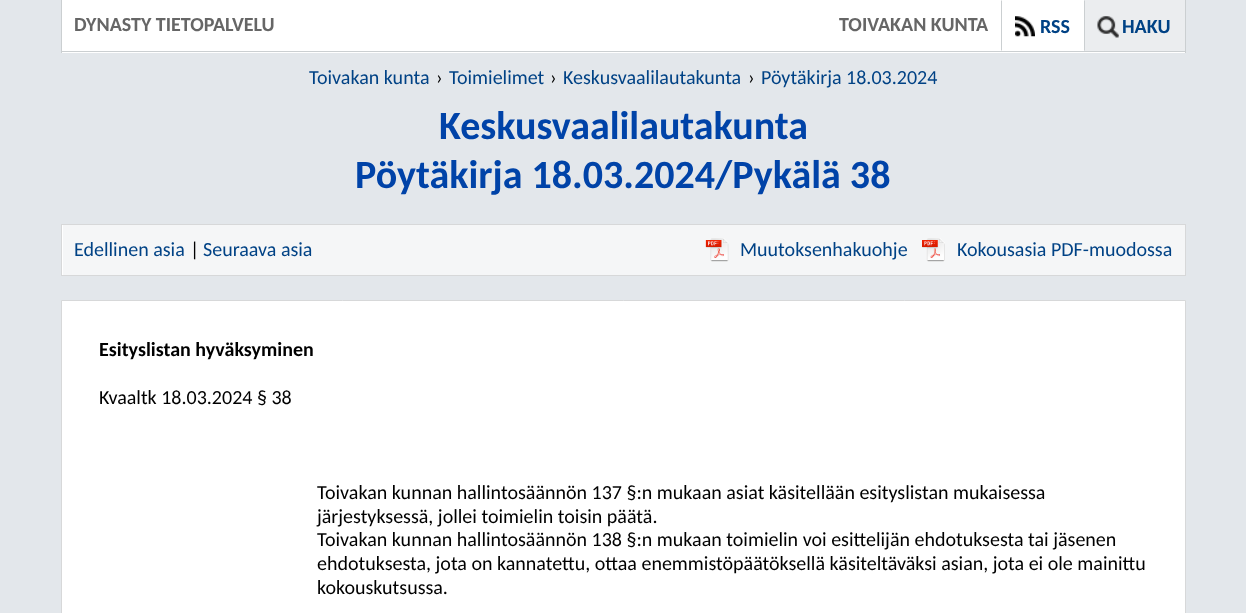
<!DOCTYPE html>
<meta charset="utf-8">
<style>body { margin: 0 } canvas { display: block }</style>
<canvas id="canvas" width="1246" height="613"></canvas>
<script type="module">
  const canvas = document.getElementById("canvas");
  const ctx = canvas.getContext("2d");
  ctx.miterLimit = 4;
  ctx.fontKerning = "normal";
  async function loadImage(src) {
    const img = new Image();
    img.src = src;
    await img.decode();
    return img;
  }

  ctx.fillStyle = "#e3e7eb";
  ctx.fillRect(0, 0, 1246, 613);
  ctx.fillStyle = "#ffffff";
  ctx.fillRect(62, 0, 1123, 53);
  ctx.fillStyle = "#cbcfd1";
  ctx.fillRect(1185, 0, 1, 53);
  ctx.fillRect(61, 51, 1125, 1);
  ctx.fillRect(61, 0, 1, 53);
  ctx.font = "bold 20px Carlito";
  ctx.fillStyle = "#666666";
  ctx.fillText("DYNASTY TIETOPALVELU", 74, 31);
  ctx.fillText("TOIVAKAN KUNTA", 839, 31);
  ctx.drawImage(await loadImage("img1.png"), 1015, 16, 20, 21);
  ctx.fillStyle = "#cbcfd1";
  ctx.beginPath();
  ctx.moveTo(1001, 51);
  ctx.lineTo(1001, 0);
  ctx.lineTo(1002, 1);
  ctx.lineTo(1002, 50);
  ctx.closePath();
  ctx.fill();
  ctx.fillStyle = "#004285";
  ctx.fillText("RSS", 1040, 33);
  ctx.fillStyle = "#ebedef";
  ctx.fillRect(1084, 0, 101, 51);
  ctx.drawImage(await loadImage("img2.png"), 1097, 16, 22, 22);
  ctx.fillStyle = "#cbcfd1";
  ctx.beginPath();
  ctx.moveTo(1084, 51);
  ctx.lineTo(1084, 0);
  ctx.lineTo(1085, 1);
  ctx.lineTo(1085, 50);
  ctx.closePath();
  ctx.fill();
  ctx.fillStyle = "#004285";
  ctx.fillText("HAKU", 1122, 33);
  ctx.font = "20px Carlito";
  ctx.fillText("Toivakan kunta", 309, 84);
  ctx.fillStyle = "#000000";
  ctx.fillText("›", 436, 84);
  ctx.fillStyle = "#004285";
  ctx.fillText("Toimielimet", 449, 84);
  ctx.fillStyle = "#000000";
  ctx.fillText("›", 550, 84);
  ctx.fillStyle = "#004285";
  ctx.fillText("Keskusvaalilautakunta", 563, 84);
  ctx.fillStyle = "#000000";
  ctx.fillText("›", 748, 84);
  ctx.fillStyle = "#004285";
  ctx.fillText("Pöytäkirja 18.03.2024", 761, 84);
  ctx.font = "bold 40px Carlito";
  ctx.fillStyle = "#0043a8";
  ctx.fillText("Keskusvaalilautakunta", 439, 139);
  ctx.fillText("Pöytäkirja 18.03.2024/Pykälä 38", 355, 188);
  ctx.fillStyle = "#ffffff";
  ctx.fillRect(62, 225, 1, 50);
  ctx.strokeStyle = "#d7d8d9";
  ctx.strokeRect(61.5, 224.5, 1124, 51);
  ctx.fillStyle = "#f5f6f7";
  ctx.fillRect(63, 225, 1122, 50);
  ctx.font = "20px Carlito";
  ctx.fillStyle = "#004285";
  ctx.fillText("Edellinen asia", 74, 256);
  ctx.fillStyle = "#000000";
  ctx.fillText("|", 190, 256);
  ctx.fillStyle = "#004285";
  ctx.fillText("Seuraava asia", 203, 256);
  ctx.drawImage(await loadImage("img3.png"), 705, 238, 24, 24);
  ctx.fillText("Muutoksenhakuohje", 740, 256);
  ctx.drawImage(await loadImage("img4.png"), 922, 238, 23, 24);
  ctx.fillText("Kokousasia PDF-muodossa", 957, 256);
  ctx.fillStyle = "#ffffff";
  ctx.beginPath();
  ctx.rect(61.5, 300.5, 1124, 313);
  ctx.fill();
  ctx.stroke();
  ctx.font = "bold 20px Carlito";
  ctx.fillStyle = "#000000";
  ctx.fillText("Esityslistan hyväksyminen", 99, 356);
  ctx.font = "20px Carlito";
  ctx.fillText("Kvaaltk 18.03.2024 § 38", 99, 404);
  ctx.fillText("Toivakan kunnan hallintosäännön 137 §:n mukaan asiat käsitellään esityslistan mukaisessa", 317, 499);
  ctx.fillText("järjestyksessä, jollei toimielin toisin päätä.", 317, 523);
  ctx.fillText("Toivakan kunnan hallintosäännön 138 §:n mukaan toimielin voi esittelijän ehdotuksesta tai jäsenen", 317, 546);
  ctx.fillText("ehdotuksesta, jota on kannatettu, ottaa enemmistöpäätöksellä käsiteltäväksi asian, jota ei ole mainittu", 317, 570);
  ctx.fillText("kokouskutsussa.", 317, 594);
</script>
